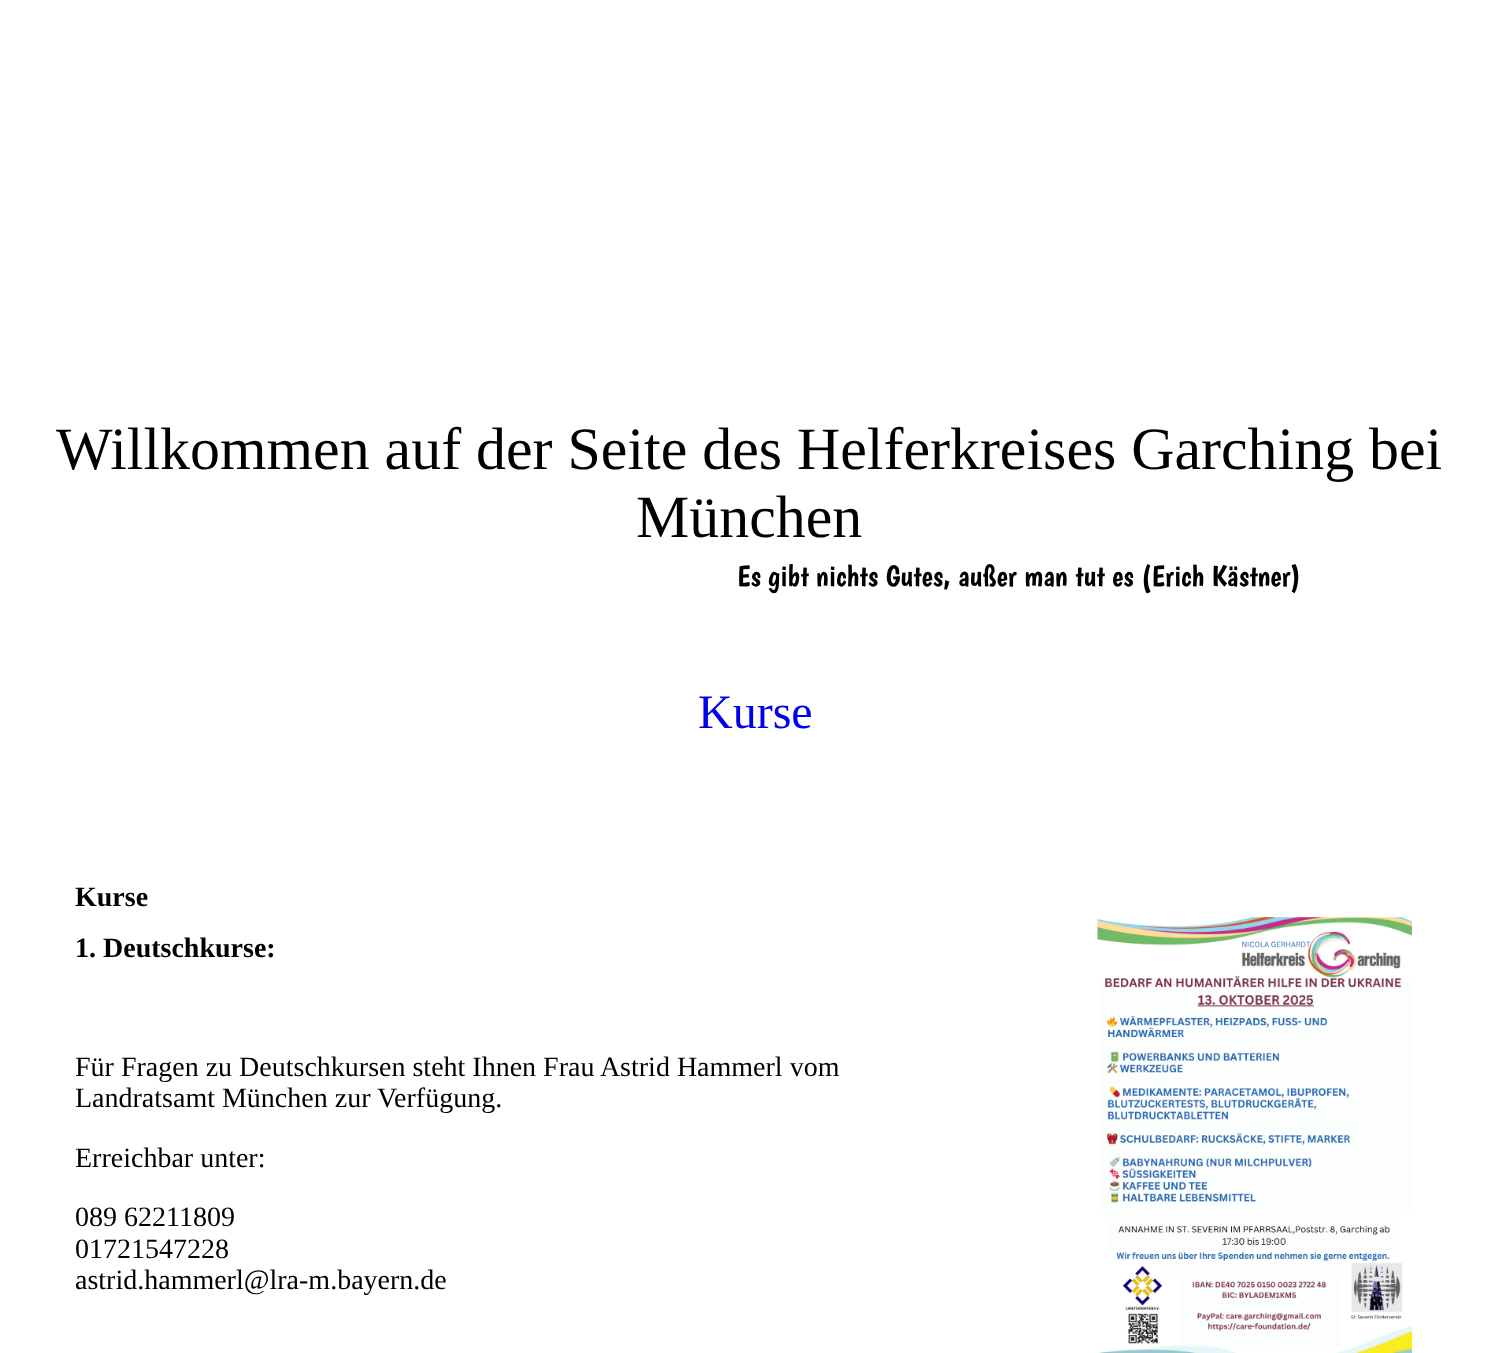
<!DOCTYPE html>
<meta charset="utf-8">
<style>body { margin: 0 } canvas { display: block }</style>
<canvas id="canvas" width="1497" height="1353"></canvas>
<script type="module">
  const canvas = document.getElementById("canvas");
  const ctx = canvas.getContext("2d");
  ctx.miterLimit = 4;
  ctx.fontKerning = "normal";
  async function loadImage(src) {
    const img = new Image();
    img.src = src;
    await img.decode();
    return img;
  }

  ctx.fillStyle = "#ffffff";
  ctx.fillRect(0, 0, 1497, 1353);
  ctx.font = "59.9px Liberation Serif";
  ctx.fillStyle = "#000000";
  ctx.fillText("Willkommen auf der Seite des Helferkreises Garching bei", 56, 469);
  ctx.fillText("München", 636, 537);
  ctx.font = "30px Boogaloo";
  ctx.fillText("Es gibt nichts Gutes, außer man tut es (Erich Kästner)", 737, 586);
  ctx.font = "48px Liberation Serif";
  ctx.fillStyle = "#0000ee";
  ctx.fillText("Kurse", 698, 728);
  ctx.font = "bold 28px Liberation Serif";
  ctx.fillStyle = "#000000";
  ctx.fillText("Kurse", 75, 906);
  ctx.fillText("1. Deutschkurse:", 75, 957);
  ctx.font = "28px Liberation Serif";
  ctx.fillText("Für Fragen zu Deutschkursen steht Ihnen Frau Astrid Hammerl vom", 75, 1076);
  ctx.fillText("Landratsamt München zur Verfügung.", 75, 1107);
  ctx.fillText("Erreichbar unter:", 75, 1167);
  ctx.fillText("089 62211809", 75, 1226);
  ctx.fillText("01721547228", 75, 1258);
  ctx.fillText("astrid.hammerl@lra-m.bayern.de", 75, 1289);
  ctx.drawImage(await loadImage("img1.png"), 1097, 917, 316, 436);
</script>
